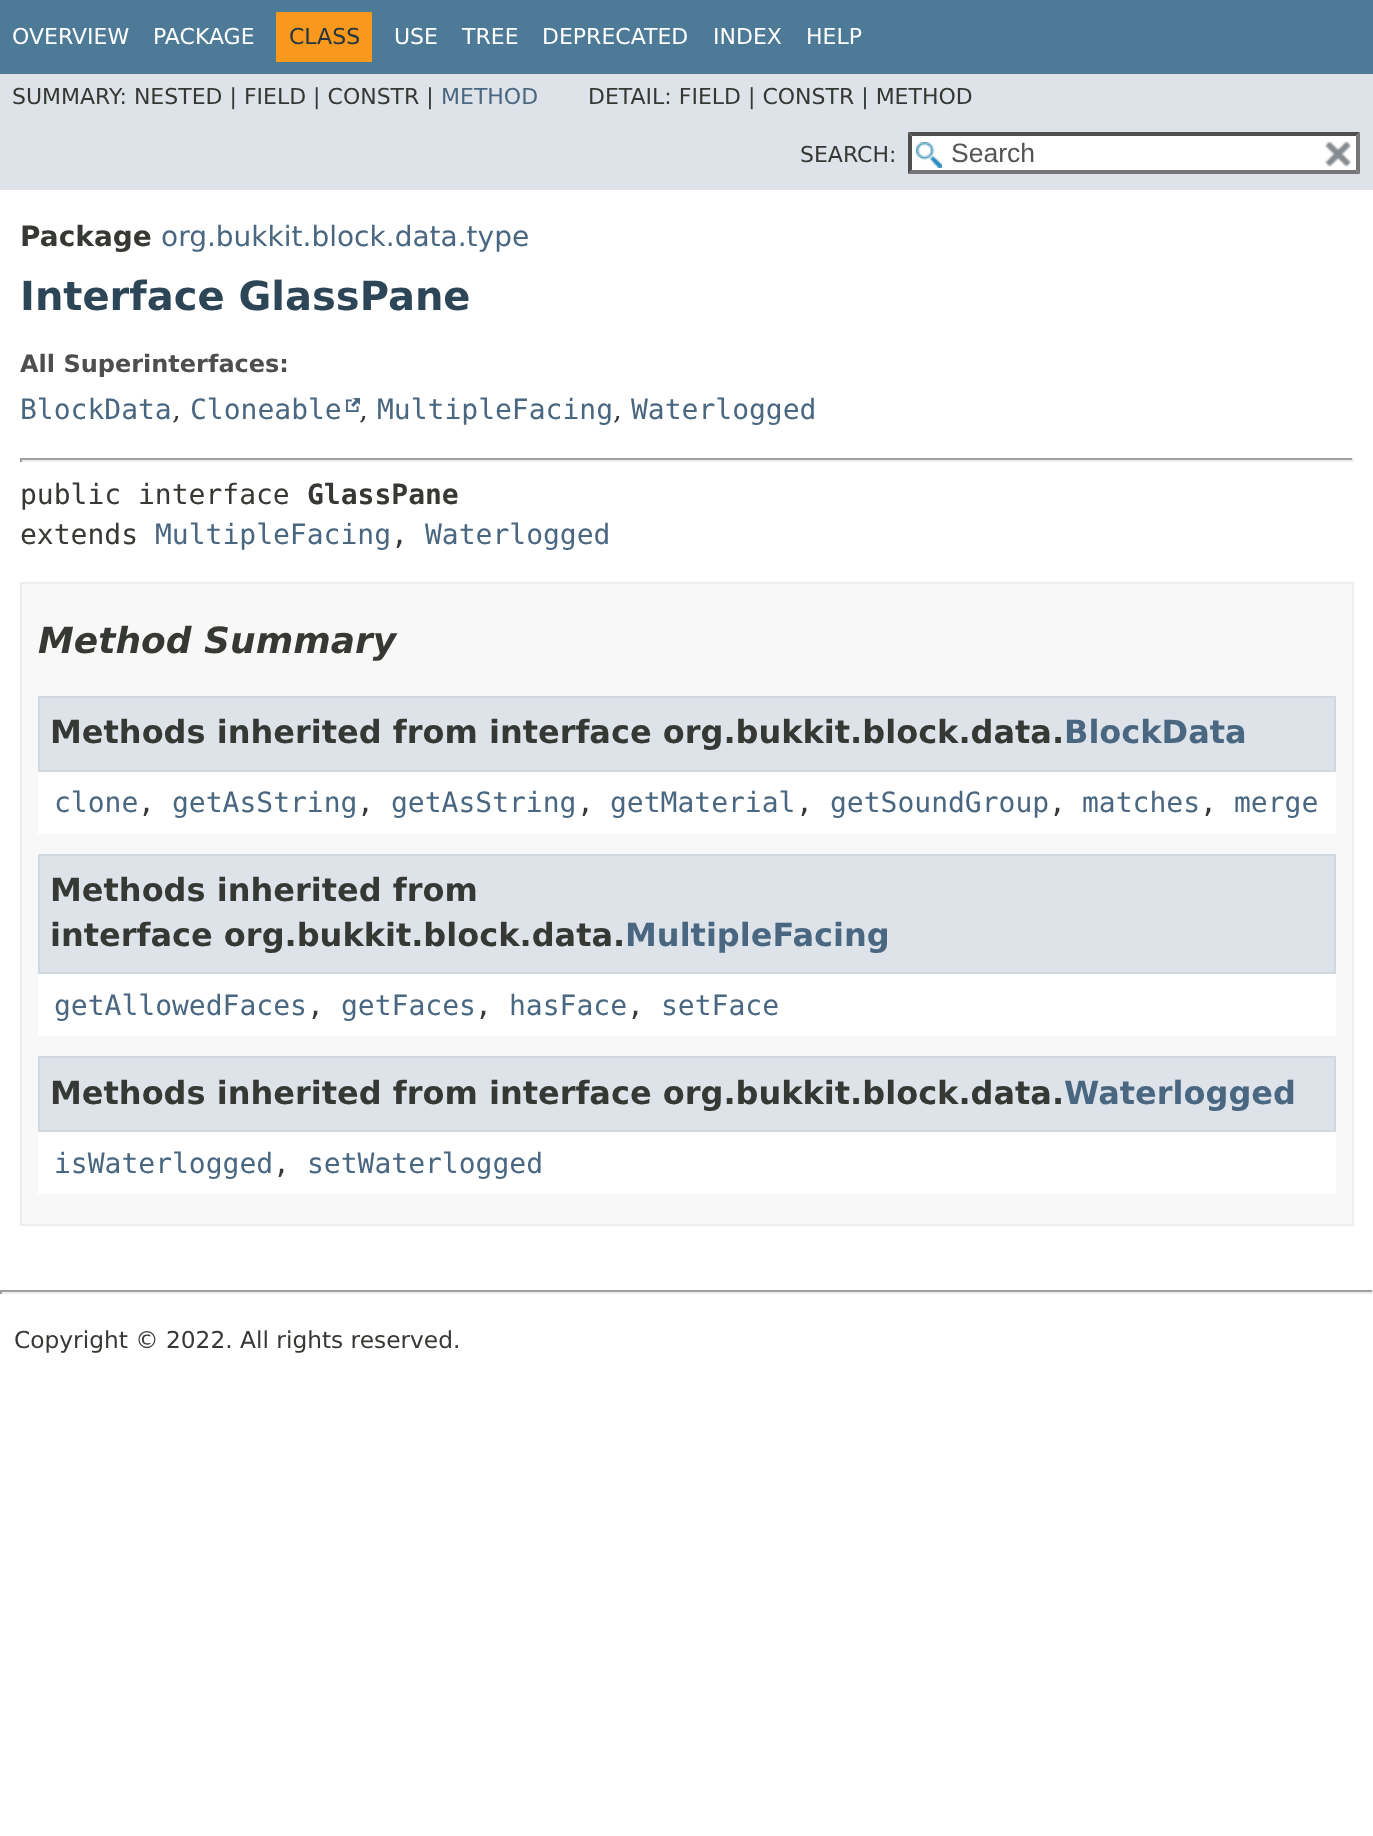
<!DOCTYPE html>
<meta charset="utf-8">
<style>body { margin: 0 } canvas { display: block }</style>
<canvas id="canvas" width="1373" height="1836"></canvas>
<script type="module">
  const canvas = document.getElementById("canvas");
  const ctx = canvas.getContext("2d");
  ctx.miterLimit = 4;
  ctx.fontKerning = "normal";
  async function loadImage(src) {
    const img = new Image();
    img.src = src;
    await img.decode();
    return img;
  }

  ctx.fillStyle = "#ffffff";
  ctx.fillRect(0, 0, 1373, 1836);
  ctx.fillStyle = "#4d7a97";
  ctx.fillRect(0, 0, 1373, 74);
  ctx.font = "22px DejaVu Sans";
  ctx.fillStyle = "#ffffff";
  ctx.fillText("OVERVIEW", 12, 44);
  ctx.fillText("PACKAGE", 153, 44);
  ctx.fillStyle = "#f8981d";
  ctx.fillRect(276, 12, 96, 50);
  ctx.fillStyle = "#253441";
  ctx.fillText("CLASS", 289, 44);
  ctx.fillStyle = "#ffffff";
  ctx.fillText("USE", 394, 44);
  ctx.fillText("TREE", 462, 44);
  ctx.fillText("DEPRECATED", 542, 44);
  ctx.fillText("INDEX", 713, 44);
  ctx.fillText("HELP", 806, 44);
  ctx.fillStyle = "#dee3e9";
  ctx.fillRect(0, 74, 1373, 116);
  ctx.fillStyle = "#353833";
  ctx.fillText("SUMMARY: NESTED | FIELD | CONSTR |", 12, 104);
  ctx.fillStyle = "#4a6782";
  ctx.fillText("METHOD", 441, 104);
  ctx.fillStyle = "#353833";
  ctx.fillText("DETAIL: FIELD | CONSTR | METHOD", 588, 104);
  ctx.fillText("SEARCH:", 800, 162);
  ctx.fillStyle = "#ffffff";
  ctx.fillRect(908, 132, 452, 42);
  ctx.drawImage(await loadImage("img1.png"), 916, 142, 26, 26);
  ctx.fillStyle = "#4f4f4f";
  ctx.beginPath();
  ctx.moveTo(908, 132);
  ctx.lineTo(1360, 132);
  ctx.lineTo(1356, 136);
  ctx.lineTo(912, 136);
  ctx.closePath();
  ctx.fill();
  ctx.fillStyle = "#767676";
  ctx.beginPath();
  ctx.moveTo(1360, 132);
  ctx.lineTo(1360, 174);
  ctx.lineTo(1356, 170);
  ctx.lineTo(1356, 136);
  ctx.closePath();
  ctx.fill();
  ctx.beginPath();
  ctx.moveTo(1360, 174);
  ctx.lineTo(908, 174);
  ctx.lineTo(912, 170);
  ctx.lineTo(1356, 170);
  ctx.closePath();
  ctx.fill();
  ctx.fillStyle = "#4f4f4f";
  ctx.beginPath();
  ctx.moveTo(908, 174);
  ctx.lineTo(908, 132);
  ctx.lineTo(912, 136);
  ctx.lineTo(912, 170);
  ctx.closePath();
  ctx.fill();
  ctx.font = "26.5px Liberation Sans";
  ctx.fillStyle = "#545454";
  ctx.fillText("Search", 951, 162);
  ctx.drawImage(await loadImage("img2.png"), 1324, 141, 27, 26);
  ctx.font = "bold 28px DejaVu Sans";
  ctx.fillStyle = "#353833";
  ctx.fillText("Package", 20, 246);
  ctx.font = "28px DejaVu Sans";
  ctx.fillStyle = "#4a6782";
  ctx.fillText("org.bukkit.block.data.type", 161, 246);
  ctx.font = "bold 40px DejaVu Sans";
  ctx.fillStyle = "#2c4557";
  ctx.fillText("Interface GlassPane", 20, 310);
  ctx.font = "bold 24px DejaVu Sans";
  ctx.fillStyle = "#4e4e4e";
  ctx.fillText("All Superinterfaces:", 20, 372);
  ctx.font = "28px DejaVu Sans Mono";
  ctx.fillStyle = "#4a6782";
  ctx.fillText("BlockData", 20, 419);
  ctx.font = "28px DejaVu Serif";
  ctx.fillStyle = "#353833";
  ctx.fillText(",", 172, 419);
  ctx.font = "28px DejaVu Sans Mono";
  ctx.fillStyle = "#4a6782";
  ctx.fillText("Cloneable", 190, 419);
  ctx.drawImage(await loadImage("img3.png"), 346, 398, 14, 14);
  ctx.font = "28px DejaVu Serif";
  ctx.fillStyle = "#353833";
  ctx.fillText(",", 359, 419);
  ctx.font = "28px DejaVu Sans Mono";
  ctx.fillStyle = "#4a6782";
  ctx.fillText("MultipleFacing", 377, 419);
  ctx.font = "28px DejaVu Serif";
  ctx.fillStyle = "#353833";
  ctx.fillText(",", 613, 419);
  ctx.font = "28px DejaVu Sans Mono";
  ctx.fillStyle = "#4a6782";
  ctx.fillText("Waterlogged", 631, 419);
  ctx.fillStyle = "#9f9f9f";
  ctx.fillRect(20, 458, 1334, 2);
  ctx.fillStyle = "#eeeeee";
  ctx.fillRect(1352, 458, 2, 4);
  ctx.fillRect(20, 460, 1334, 2);
  ctx.fillStyle = "#9f9f9f";
  ctx.fillRect(20, 458, 2, 4);
  ctx.fillStyle = "#353833";
  ctx.fillText("public interface", 20, 504);
  ctx.font = "bold 28px DejaVu Sans Mono";
  ctx.fillText("GlassPane", 307, 504);
  ctx.font = "28px DejaVu Sans Mono";
  ctx.fillText("extends", 20, 544);
  ctx.fillStyle = "#4a6782";
  ctx.fillText("MultipleFacing", 155, 544);
  ctx.fillStyle = "#353833";
  ctx.fillText(",", 391, 544);
  ctx.fillStyle = "#4a6782";
  ctx.fillText("Waterlogged", 425, 544);
  ctx.fillStyle = "#f8f8f8";
  ctx.beginPath();
  ctx.rect(21, 583, 1332, 642);
  ctx.fill();
  ctx.strokeStyle = "#ededed";
  ctx.lineWidth = 2;
  ctx.stroke();
  ctx.font = "italic bold 36px DejaVu Sans";
  ctx.fillStyle = "#353833";
  ctx.fillText("Method Summary", 38, 653);
  ctx.fillStyle = "#ffffff";
  ctx.fillRect(38, 772, 1298, 62);
  ctx.fillStyle = "#dee3e9";
  ctx.beginPath();
  ctx.rect(39, 697, 1296, 74);
  ctx.fill();
  ctx.strokeStyle = "#d0d9e0";
  ctx.stroke();
  ctx.font = "bold 32px DejaVu Sans";
  ctx.fillStyle = "#353833";
  ctx.fillText("Methods inherited from interface org.bukkit.block.data.", 50, 743);
  ctx.fillStyle = "#4a6782";
  ctx.fillText("BlockData", 1064, 743);
  ctx.font = "28px DejaVu Sans Mono";
  ctx.fillText("clone", 54, 812);
  ctx.fillStyle = "#353833";
  ctx.fillText(",", 138, 812);
  ctx.fillStyle = "#4a6782";
  ctx.fillText("getAsString", 172, 812);
  ctx.fillStyle = "#353833";
  ctx.fillText(",", 357, 812);
  ctx.fillStyle = "#4a6782";
  ctx.fillText("getAsString", 391, 812);
  ctx.fillStyle = "#353833";
  ctx.fillText(",", 577, 812);
  ctx.fillStyle = "#4a6782";
  ctx.fillText("getMaterial", 610, 812);
  ctx.fillStyle = "#353833";
  ctx.fillText(",", 796, 812);
  ctx.fillStyle = "#4a6782";
  ctx.fillText("getSoundGroup", 830, 812);
  ctx.fillStyle = "#353833";
  ctx.fillText(",", 1049, 812);
  ctx.fillStyle = "#4a6782";
  ctx.fillText("matches", 1082, 812);
  ctx.fillStyle = "#353833";
  ctx.fillText(",", 1200, 812);
  ctx.fillStyle = "#4a6782";
  ctx.fillText("merge", 1234, 812);
  ctx.fillStyle = "#ffffff";
  ctx.fillRect(38, 974, 1298, 62);
  ctx.fillStyle = "#dee3e9";
  ctx.beginPath();
  ctx.rect(39, 855, 1296, 118);
  ctx.fill();
  ctx.stroke();
  ctx.font = "bold 32px DejaVu Sans";
  ctx.fillStyle = "#353833";
  ctx.fillText("Methods inherited from", 50, 901);
  ctx.fillText("interface org.bukkit.block.data.", 50, 946);
  ctx.fillStyle = "#4a6782";
  ctx.fillText("MultipleFacing", 625, 946);
  ctx.font = "28px DejaVu Sans Mono";
  ctx.fillText("getAllowedFaces", 54, 1015);
  ctx.fillStyle = "#353833";
  ctx.fillText(",", 307, 1015);
  ctx.fillStyle = "#4a6782";
  ctx.fillText("getFaces", 341, 1015);
  ctx.fillStyle = "#353833";
  ctx.fillText(",", 475, 1015);
  ctx.fillStyle = "#4a6782";
  ctx.fillText("hasFace", 509, 1015);
  ctx.fillStyle = "#353833";
  ctx.fillText(",", 627, 1015);
  ctx.fillStyle = "#4a6782";
  ctx.fillText("setFace", 661, 1015);
  ctx.fillStyle = "#ffffff";
  ctx.fillRect(38, 1132, 1298, 62);
  ctx.fillStyle = "#dee3e9";
  ctx.beginPath();
  ctx.rect(39, 1057, 1296, 74);
  ctx.fill();
  ctx.stroke();
  ctx.font = "bold 32px DejaVu Sans";
  ctx.fillStyle = "#353833";
  ctx.fillText("Methods inherited from interface org.bukkit.block.data.", 50, 1104);
  ctx.fillStyle = "#4a6782";
  ctx.fillText("Waterlogged", 1064, 1104);
  ctx.font = "28px DejaVu Sans Mono";
  ctx.fillText("isWaterlogged", 54, 1173);
  ctx.fillStyle = "#353833";
  ctx.fillText(",", 273, 1173);
  ctx.fillStyle = "#4a6782";
  ctx.fillText("setWaterlogged", 307, 1173);
  ctx.fillStyle = "#9f9f9f";
  ctx.fillRect(0, 1290, 1373, 2);
  ctx.fillStyle = "#eeeeee";
  ctx.fillRect(1372, 1290, 1, 4);
  ctx.fillRect(0, 1292, 1373, 2);
  ctx.fillStyle = "#9f9f9f";
  ctx.fillRect(0, 1290, 2, 4);
  ctx.font = "23.3px DejaVu Sans";
  ctx.fillStyle = "#353833";
  ctx.fillText("Copyright © 2022. All rights reserved.", 14, 1348);
</script>
